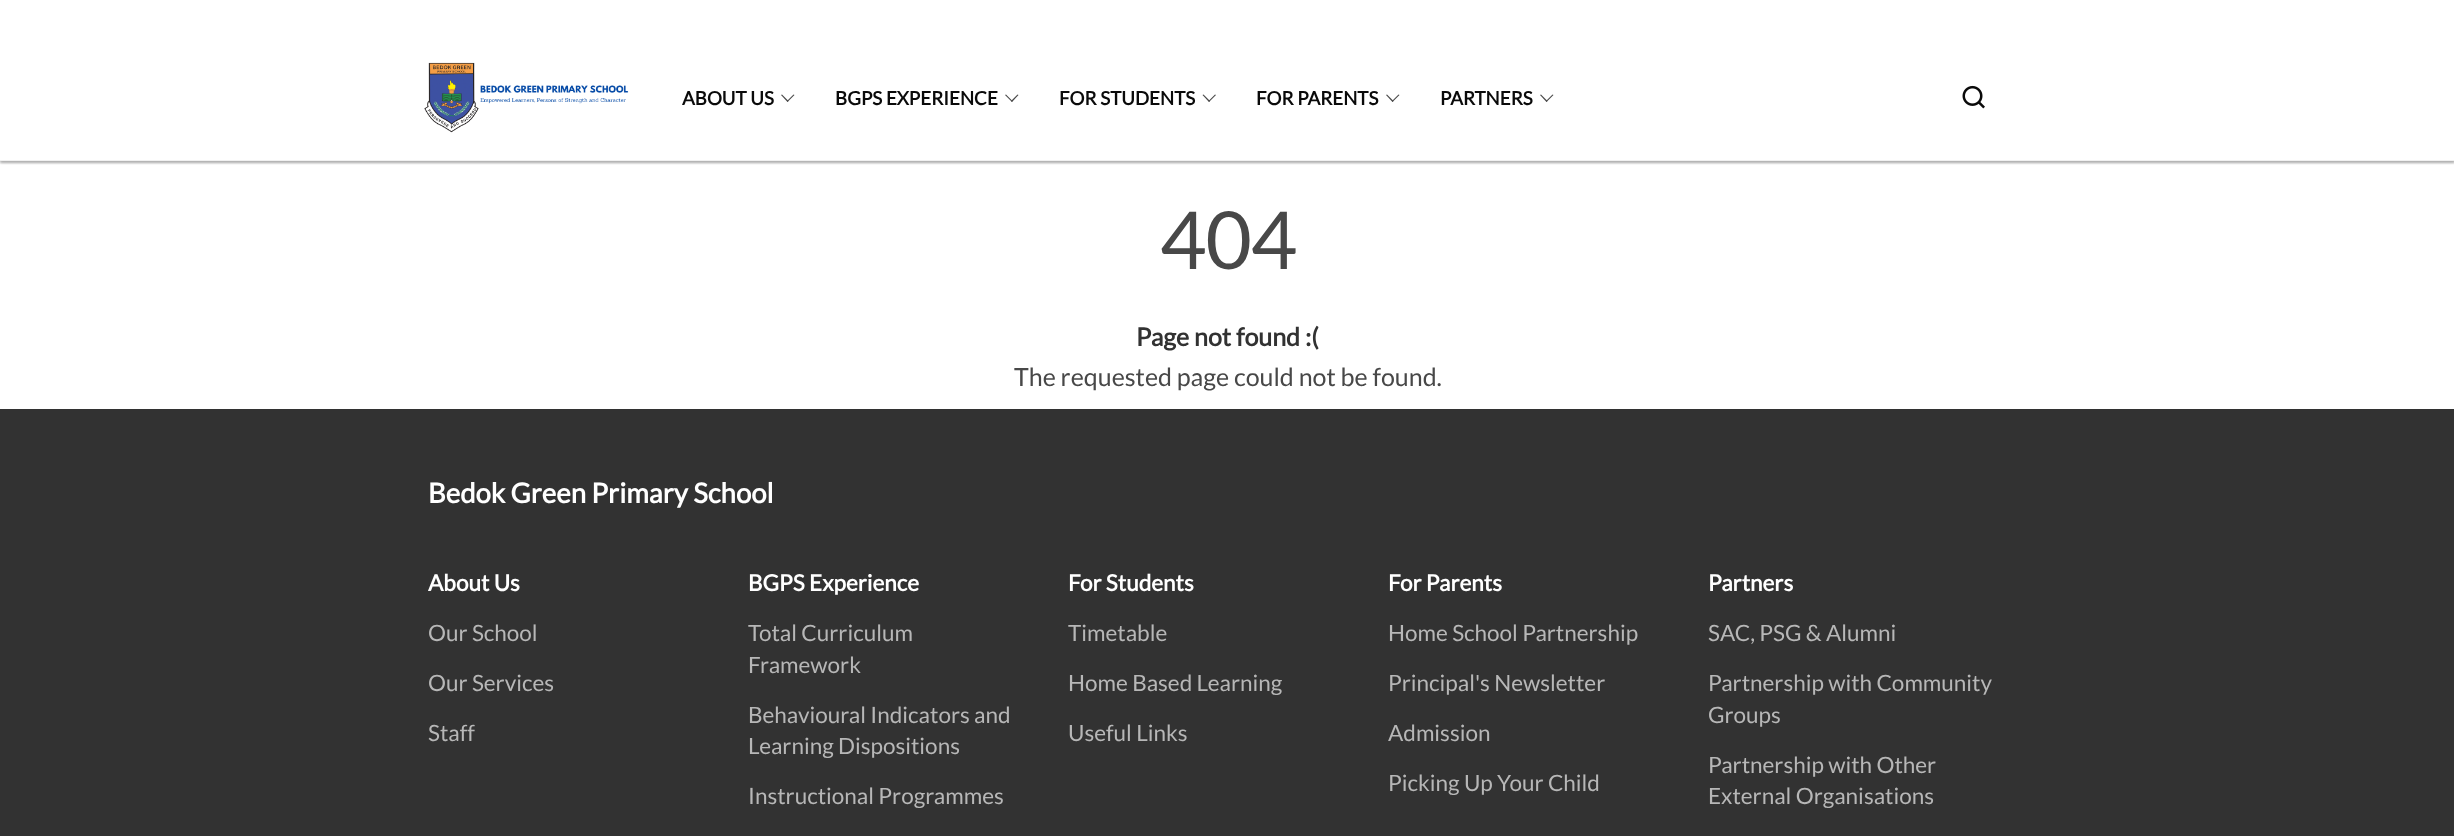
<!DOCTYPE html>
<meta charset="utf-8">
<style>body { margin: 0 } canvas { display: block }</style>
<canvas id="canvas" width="2454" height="836"></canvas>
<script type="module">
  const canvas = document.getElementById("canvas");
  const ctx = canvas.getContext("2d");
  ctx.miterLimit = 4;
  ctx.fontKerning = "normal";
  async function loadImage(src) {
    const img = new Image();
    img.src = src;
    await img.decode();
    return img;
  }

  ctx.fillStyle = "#ffffff";
  ctx.fillRect(0, 0, 2454, 836);
  ctx.save();
  ctx.beginPath();
  ctx.rect(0, 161, 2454, 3);
  ctx.clip();
  ctx.fillStyle = "rgba(0, 0, 0, 0.24)";
  ctx.filter = "blur(1px)";
  ctx.beginPath();
  ctx.rect(0, -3, 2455, 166);
  ctx.fill();
  ctx.filter = "none";
  ctx.restore();
  ctx.save();
  ctx.beginPath();
  ctx.rect(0, 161, 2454, 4);
  ctx.clip();
  ctx.fillStyle = "rgba(0, 0, 0, 0.12)";
  ctx.filter = "blur(2px)";
  ctx.beginPath();
  ctx.rect(0, -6, 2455, 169);
  ctx.fill();
  ctx.filter = "none";
  ctx.restore();
  ctx.fillStyle = "#f0f0f0";
  ctx.fillRect(0, 160, 2454, 1);
  ctx.drawImage(await loadImage("img1.png"), 424, 62, 205, 71);
  ctx.font = "bold 18.75px Lato";
  ctx.fillStyle = "#0a0a0a";
  ctx.fillText("ABOUT US", 682, 105);
  ctx.fillStyle = "#484848";
  ctx.beginPath();
  ctx.moveTo(787, 101);
  ctx.lineTo(793.5, 94.5);
  ctx.lineTo(794.5, 95);
  ctx.lineTo(787.5, 102);
  ctx.closePath();
  ctx.fill();
  ctx.beginPath();
  ctx.moveTo(781, 95);
  ctx.lineTo(782, 94.5);
  ctx.lineTo(788.5, 101);
  ctx.lineTo(787.5, 102);
  ctx.closePath();
  ctx.fill();
  ctx.fillStyle = "#0a0a0a";
  ctx.fillText("BGPS EXPERIENCE", 835, 105);
  ctx.fillStyle = "#484848";
  ctx.beginPath();
  ctx.moveTo(1011, 101);
  ctx.lineTo(1017.5, 94.5);
  ctx.lineTo(1018.5, 95);
  ctx.lineTo(1012, 102);
  ctx.closePath();
  ctx.fill();
  ctx.beginPath();
  ctx.moveTo(1005, 95);
  ctx.lineTo(1006, 94.5);
  ctx.lineTo(1012.5, 101);
  ctx.lineTo(1012, 102);
  ctx.closePath();
  ctx.fill();
  ctx.fillStyle = "#0a0a0a";
  ctx.fillText("FOR STUDENTS", 1059, 105);
  ctx.fillStyle = "#484848";
  ctx.beginPath();
  ctx.moveTo(1208.5, 101);
  ctx.lineTo(1215, 94.5);
  ctx.lineTo(1216, 95);
  ctx.lineTo(1209, 102);
  ctx.closePath();
  ctx.fill();
  ctx.beginPath();
  ctx.moveTo(1202.5, 95);
  ctx.lineTo(1203.5, 94.5);
  ctx.lineTo(1210, 101);
  ctx.lineTo(1209, 102);
  ctx.closePath();
  ctx.fill();
  ctx.fillStyle = "#0a0a0a";
  ctx.fillText("FOR PARENTS", 1256, 105);
  ctx.fillStyle = "#484848";
  ctx.beginPath();
  ctx.moveTo(1392, 101);
  ctx.lineTo(1398.5, 94.5);
  ctx.lineTo(1399.5, 95);
  ctx.lineTo(1392.5, 102);
  ctx.closePath();
  ctx.fill();
  ctx.beginPath();
  ctx.moveTo(1386, 95);
  ctx.lineTo(1387, 94.5);
  ctx.lineTo(1393.5, 101);
  ctx.lineTo(1392.5, 102);
  ctx.closePath();
  ctx.fill();
  ctx.fillStyle = "#0a0a0a";
  ctx.fillText("PARTNERS", 1440, 105);
  ctx.fillStyle = "#484848";
  ctx.beginPath();
  ctx.moveTo(1546, 101);
  ctx.lineTo(1552.5, 94.5);
  ctx.lineTo(1553.5, 95);
  ctx.lineTo(1546.5, 102);
  ctx.closePath();
  ctx.fill();
  ctx.beginPath();
  ctx.moveTo(1540, 95);
  ctx.lineTo(1541, 94.5);
  ctx.lineTo(1547.5, 101);
  ctx.lineTo(1546.5, 102);
  ctx.closePath();
  ctx.fill();
  ctx.drawImage(await loadImage("img2.png"), 1962, 85, 23, 24);
  ctx.letterSpacing = "-1px";
  ctx.font = "80px Lato";
  ctx.fillText("404", 1160, 269);
  ctx.letterSpacing = "0px";
  ctx.font = "bold 25px Lato";
  ctx.fillStyle = "#323232";
  ctx.fillText("Page not found :(", 1136, 346);
  ctx.font = "25px Lato";
  ctx.fillStyle = "#484848";
  ctx.fillText("The requested page could not be found.", 1014, 386);
  ctx.fillStyle = "#323232";
  ctx.fillRect(0, 409, 2454, 427);
  ctx.font = "bold 27.5px Lato";
  ctx.fillStyle = "#ffffff";
  ctx.fillText("Bedok Green Primary School", 428, 503);
  ctx.font = "bold 22.5px Lato";
  ctx.fillText("About Us", 428, 591);
  ctx.font = "22.5px Lato";
  ctx.fillStyle = "#b7b7b7";
  ctx.fillText("Our School", 428, 641);
  ctx.fillText("Our Services", 428, 691);
  ctx.fillText("Staff", 428, 741);
  ctx.font = "bold 22.5px Lato";
  ctx.fillStyle = "#ffffff";
  ctx.fillText("BGPS Experience", 748, 591);
  ctx.font = "22.5px Lato";
  ctx.fillStyle = "#b7b7b7";
  ctx.fillText("Total Curriculum", 748, 641);
  ctx.fillText("Framework", 748, 673);
  ctx.fillText("Behavioural Indicators and", 748, 723);
  ctx.fillText("Learning Dispositions", 748, 754);
  ctx.fillText("Instructional Programmes", 748, 804);
  ctx.font = "bold 22.5px Lato";
  ctx.fillStyle = "#ffffff";
  ctx.fillText("For Students", 1068, 591);
  ctx.font = "22.5px Lato";
  ctx.fillStyle = "#b7b7b7";
  ctx.fillText("Timetable", 1068, 641);
  ctx.fillText("Home Based Learning", 1068, 691);
  ctx.fillText("Useful Links", 1068, 741);
  ctx.font = "bold 22.5px Lato";
  ctx.fillStyle = "#ffffff";
  ctx.fillText("For Parents", 1388, 591);
  ctx.font = "22.5px Lato";
  ctx.fillStyle = "#b7b7b7";
  ctx.fillText("Home School Partnership", 1388, 641);
  ctx.fillText("Principal's Newsletter", 1388, 691);
  ctx.fillText("Admission", 1388, 741);
  ctx.fillText("Picking Up Your Child", 1388, 791);
  ctx.font = "bold 22.5px Lato";
  ctx.fillStyle = "#ffffff";
  ctx.fillText("Partners", 1708, 591);
  ctx.font = "22.5px Lato";
  ctx.fillStyle = "#b7b7b7";
  ctx.fillText("SAC, PSG & Alumni", 1708, 641);
  ctx.fillText("Partnership with Community", 1708, 691);
  ctx.fillText("Groups", 1708, 723);
  ctx.fillText("Partnership with Other", 1708, 773);
  ctx.fillText("External Organisations", 1708, 804);
</script>
